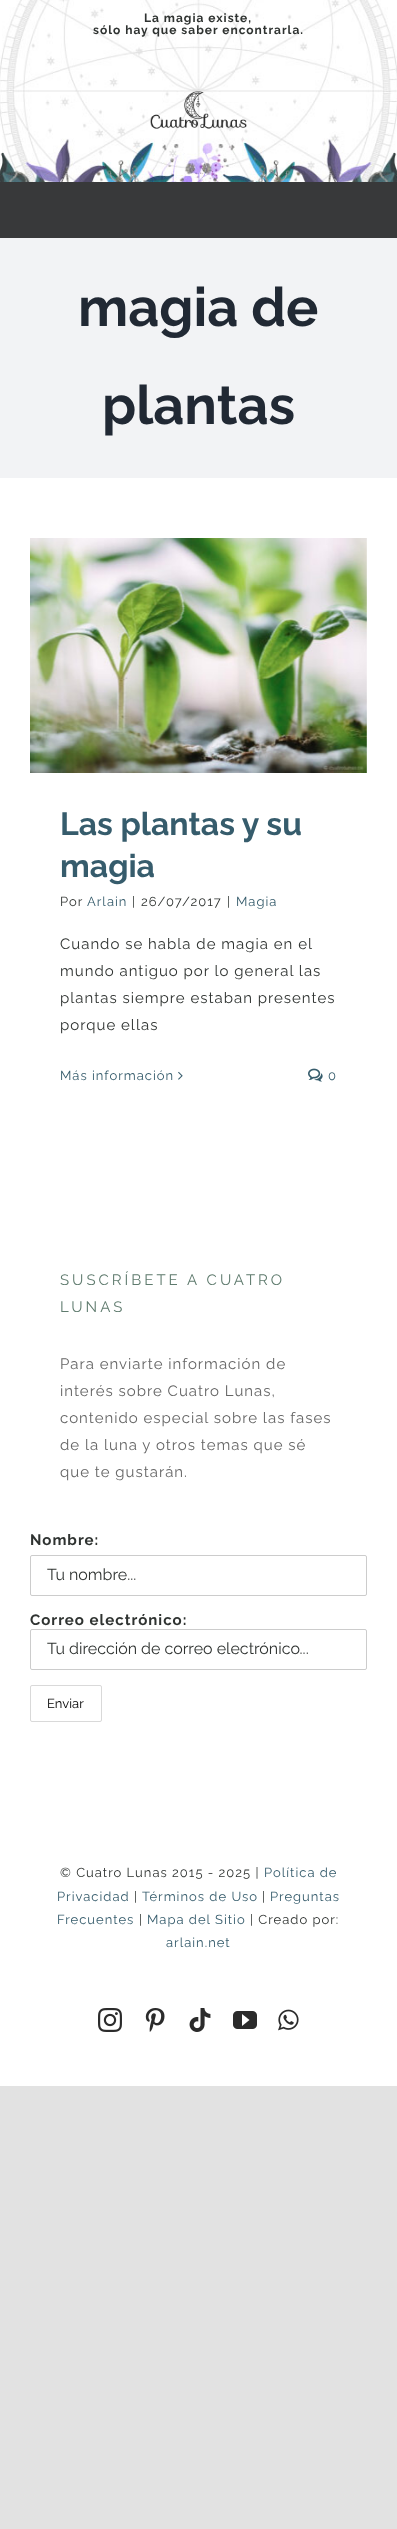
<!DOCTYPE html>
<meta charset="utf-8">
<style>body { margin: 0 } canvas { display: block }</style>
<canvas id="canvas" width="397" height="2529"></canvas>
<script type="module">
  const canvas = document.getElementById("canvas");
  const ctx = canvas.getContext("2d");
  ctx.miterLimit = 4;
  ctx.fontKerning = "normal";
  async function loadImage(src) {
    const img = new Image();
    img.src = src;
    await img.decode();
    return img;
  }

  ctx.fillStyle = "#e2e2e2";
  ctx.fillRect(0, 0, 397, 2529);
  ctx.fillStyle = "#ffffff";
  ctx.fillRect(0, 478, 397, 1608);
  ctx.drawImage(await loadImage("img1.png"), 0, 0, 397, 182);
  ctx.letterSpacing = "1px";
  ctx.font = "bold 12px Raleway";
  ctx.fillStyle = "#2f3331";
  ctx.fillText("La magia existe,", 144, 22);
  ctx.fillText("sólo hay que saber encontrarla.", 93, 34);
  ctx.drawImage(await loadImage("img2.png"), 150, 91, 97, 38);
  ctx.fillStyle = "#38393a";
  ctx.fillRect(0, 182, 397, 56);
  ctx.fillStyle = "#f2f3f5";
  ctx.fillRect(0, 238, 397, 240);
  ctx.letterSpacing = "0px";
  ctx.font = "bold 54px Raleway";
  ctx.fillStyle = "#212934";
  ctx.fillText("magia de", 78, 326);
  ctx.fillText("plantas", 102, 424);
  ctx.drawImage(await loadImage("img3.png"), 30, 538, 337, 235);
  ctx.font = "bold 32px Raleway";
  ctx.fillStyle = "#365c6c";
  ctx.fillText("Las plantas y su", 60, 835);
  ctx.fillText("magia", 60, 877);
  ctx.letterSpacing = "1px";
  ctx.font = "13px Raleway";
  ctx.fillStyle = "#2f3331";
  ctx.fillText("Por", 60, 906);
  ctx.fillStyle = "#365c6c";
  ctx.fillText("Arlain", 87, 906);
  ctx.fillStyle = "#2f3331";
  ctx.fillText("|", 132, 906);
  ctx.fillText("26/07/2017", 141, 906);
  ctx.fillText("|", 227, 906);
  ctx.fillStyle = "#365c6c";
  ctx.fillText("Magia", 236, 906);
  ctx.font = "15px Raleway";
  ctx.fillStyle = "#2f3331";
  ctx.fillText("Cuando se habla de magia en el", 60, 949);
  ctx.fillText("mundo antiguo por lo general las", 60, 976);
  ctx.fillText("plantas siempre estaban presentes", 60, 1003);
  ctx.fillText("porque ellas", 60, 1030);
  ctx.font = "13px Raleway";
  ctx.fillStyle = "#365c6c";
  ctx.fillText("Más información", 60, 1080);
  ctx.drawImage(await loadImage("img4.png"), 178, 1071, 5, 9);
  ctx.drawImage(await loadImage("img5.png"), 308, 1068, 15, 14);
  ctx.fillText("0", 328, 1080);
  ctx.letterSpacing = "3px";
  ctx.font = "15px Raleway";
  ctx.fillStyle = "#5f7b6e";
  ctx.fillText("SUSCRÍBETE A CUATRO", 60, 1285);
  ctx.fillText("LUNAS", 60, 1312);
  ctx.letterSpacing = "1px";
  ctx.fillStyle = "#666666";
  ctx.fillText("Para enviarte información de", 60, 1369);
  ctx.fillText("interés sobre Cuatro Lunas,", 60, 1396);
  ctx.fillText("contenido especial sobre las fases", 60, 1423);
  ctx.fillText("de la luna y otros temas que sé", 60, 1450);
  ctx.fillText("que te gustarán.", 60, 1477);
  ctx.font = "bold 15px Raleway";
  ctx.fillStyle = "#2f3331";
  ctx.fillText("Nombre:", 30, 1545);
  ctx.beginPath();
  ctx.roundRect(30.5, 1555.5, 336, 40, 1.5);
  ctx.strokeStyle = "#cccccc";
  ctx.stroke();
  ctx.letterSpacing = "0px";
  ctx.font = "16px Raleway";
  ctx.fillText("Tu nombre...", 47, 1580);
  ctx.letterSpacing = "1px";
  ctx.font = "bold 15px Raleway";
  ctx.fillText("Correo electrónico:", 30, 1625);
  ctx.beginPath();
  ctx.roundRect(30.5, 1629.5, 336, 40, 1.5);
  ctx.stroke();
  ctx.letterSpacing = "0px";
  ctx.font = "16px Raleway";
  ctx.fillText("Tu dirección de correo electrónico...", 47, 1654);
  ctx.beginPath();
  ctx.roundRect(30.5, 1685.5, 71, 36, 1.5);
  ctx.strokeStyle = "#d9d9d9";
  ctx.stroke();
  ctx.font = "13px Raleway";
  ctx.fillStyle = "#000000";
  ctx.fillText("Enviar", 47, 1708);
  ctx.letterSpacing = "1px";
  ctx.fillStyle = "#2f3331";
  ctx.fillText("© Cuatro Lunas 2015 - 2025 |", 60, 1877);
  ctx.fillStyle = "#365c6c";
  ctx.fillText("Política de", 264, 1877);
  ctx.fillText("Privacidad", 57, 1901);
  ctx.fillStyle = "#2f3331";
  ctx.fillText("|", 134, 1901);
  ctx.fillStyle = "#365c6c";
  ctx.fillText("Términos de Uso", 142, 1901);
  ctx.fillStyle = "#2f3331";
  ctx.fillText("|", 262, 1901);
  ctx.fillStyle = "#365c6c";
  ctx.fillText("Preguntas", 270, 1901);
  ctx.fillText("Frecuentes", 57, 1924);
  ctx.fillStyle = "#2f3331";
  ctx.fillText("|", 139, 1924);
  ctx.fillStyle = "#365c6c";
  ctx.fillText("Mapa del Sitio", 147, 1924);
  ctx.fillStyle = "#2f3331";
  ctx.fillText("| Creado por:", 250, 1924);
  ctx.fillStyle = "#365c6c";
  ctx.fillText("arlain.net", 166, 1947);
  ctx.drawImage(await loadImage("img6.png"), 98, 2008, 24, 24);
  ctx.drawImage(await loadImage("img7.png"), 145, 2008, 20, 24);
  ctx.drawImage(await loadImage("img8.png"), 189, 2008, 22, 24);
  ctx.drawImage(await loadImage("img9.png"), 233, 2011, 24, 18);
  ctx.drawImage(await loadImage("img10.png"), 278, 2009, 21, 22);
</script>
